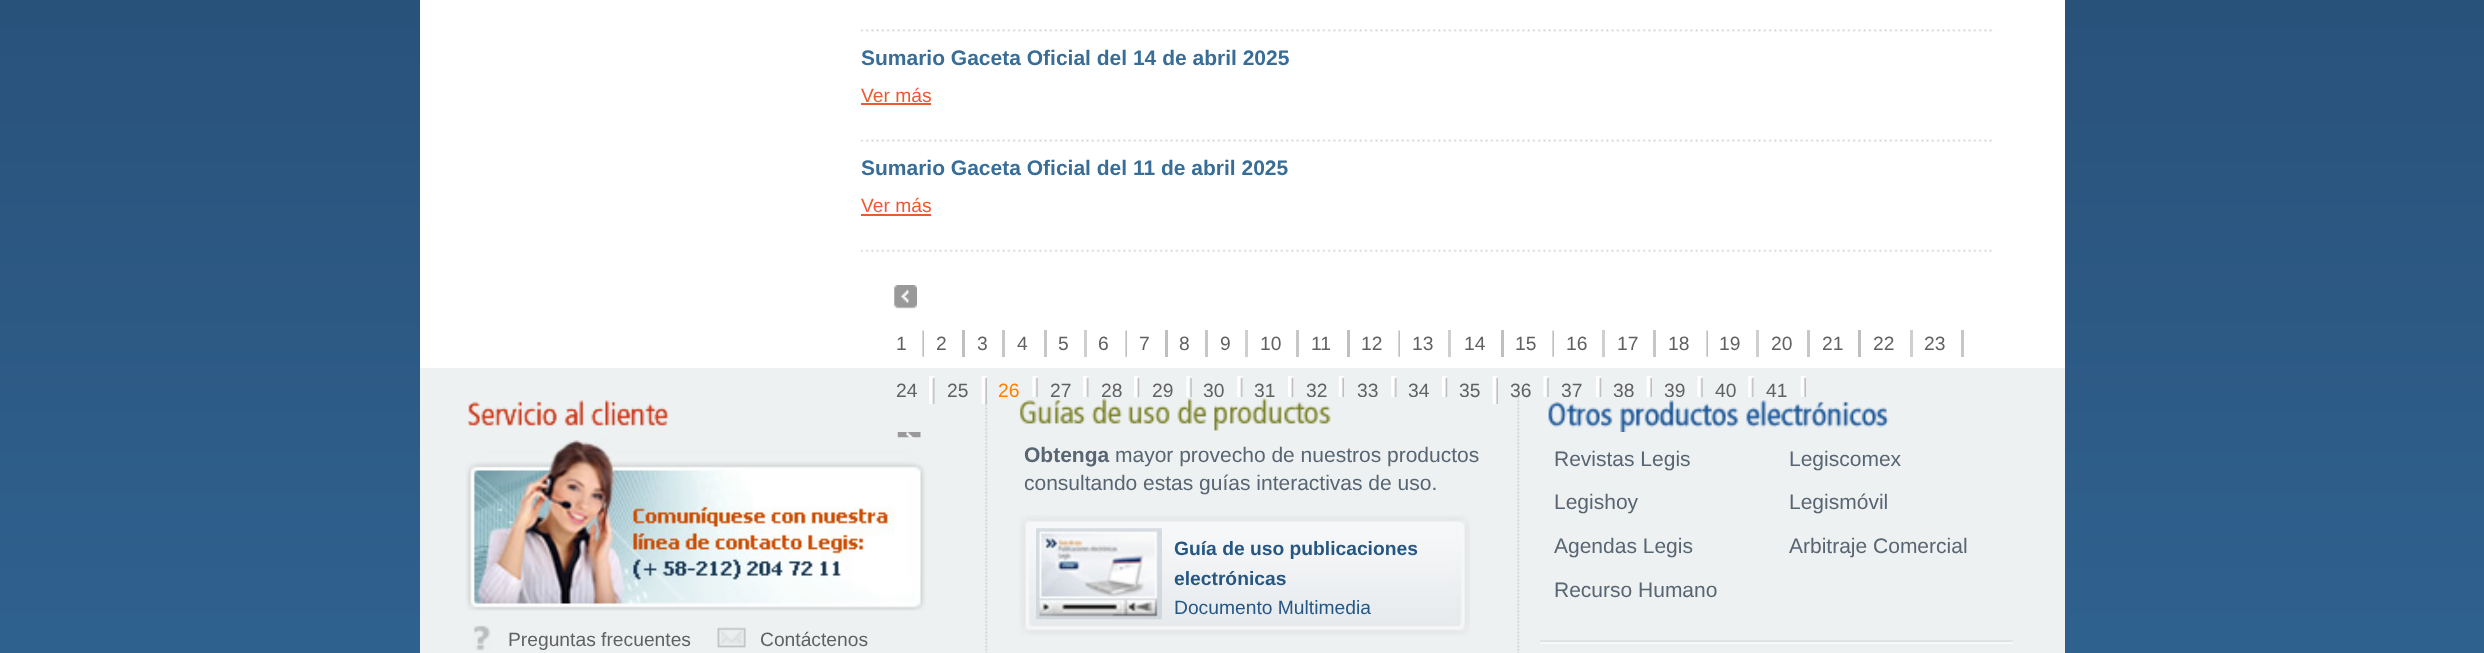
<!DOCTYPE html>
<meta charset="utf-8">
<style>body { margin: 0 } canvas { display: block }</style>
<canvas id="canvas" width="2484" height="653"></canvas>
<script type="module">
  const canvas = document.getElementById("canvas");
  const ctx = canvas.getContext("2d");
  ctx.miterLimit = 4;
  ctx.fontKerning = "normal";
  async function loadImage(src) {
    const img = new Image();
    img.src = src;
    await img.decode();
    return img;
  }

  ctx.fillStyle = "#ffffff";
  ctx.fillRect(0, 0, 2484, 653);
  ctx.drawImage(await loadImage("img1.png"), 0, 0, 2484, 653);
  ctx.fillRect(420, 0, 1645, 368);
  ctx.drawImage(await loadImage("img2.png"), 861, 29, 1134, 3);
  ctx.font = "bold 21px Liberation Sans";
  ctx.fillStyle = "#386d98";
  ctx.fillText("Sumario Gaceta Oficial del 14 de abril 2025", 861, 65);
  ctx.font = "19.25px Liberation Sans";
  ctx.fillStyle = "#ee5833";
  ctx.fillText("Ver más", 861, 102);
  ctx.fillRect(861, 103, 70, 2);
  ctx.drawImage(await loadImage("img3.png"), 861, 139, 1134, 3);
  ctx.font = "bold 21px Liberation Sans";
  ctx.fillStyle = "#386d98";
  ctx.fillText("Sumario Gaceta Oficial del 11 de abril 2025", 861, 175);
  ctx.font = "19.25px Liberation Sans";
  ctx.fillStyle = "#ee5833";
  ctx.fillText("Ver más", 861, 212);
  ctx.fillRect(861, 214, 70, 2);
  ctx.drawImage(await loadImage("img4.png"), 861, 249, 1134, 3);
  ctx.drawImage(await loadImage("img5.png"), 894, 285, 23, 24);
  ctx.fillStyle = "#616161";
  ctx.fillText("1", 896, 350);
  ctx.drawImage(await loadImage("img6.png"), 922, 330, 2, 27);
  ctx.fillText("2", 936, 350);
  ctx.fillStyle = "#bfbfbf";
  ctx.fillRect(962, 330, 3, 27);
  ctx.fillStyle = "#616161";
  ctx.fillText("3", 977, 350);
  ctx.fillStyle = "#c7c7c7";
  ctx.fillRect(1002, 330, 3, 27);
  ctx.fillStyle = "#616161";
  ctx.fillText("4", 1017, 350);
  ctx.fillStyle = "#c7c7c7";
  ctx.fillRect(1044, 330, 3, 27);
  ctx.fillStyle = "#616161";
  ctx.fillText("5", 1058, 350);
  ctx.fillStyle = "#cfcfcf";
  ctx.fillRect(1084, 330, 3, 27);
  ctx.fillStyle = "#616161";
  ctx.fillText("6", 1098, 350);
  ctx.drawImage(await loadImage("img6.png"), 1125, 330, 2, 27);
  ctx.fillText("7", 1139, 350);
  ctx.fillStyle = "#bfbfbf";
  ctx.fillRect(1165, 330, 3, 27);
  ctx.fillStyle = "#616161";
  ctx.fillText("8", 1179, 350);
  ctx.fillStyle = "#c7c7c7";
  ctx.fillRect(1205, 330, 3, 27);
  ctx.fillStyle = "#616161";
  ctx.fillText("9", 1220, 350);
  ctx.fillStyle = "#cfcfcf";
  ctx.fillRect(1245, 330, 3, 27);
  ctx.fillStyle = "#616161";
  ctx.fillText("10", 1260, 350);
  ctx.fillStyle = "#c7c7c7";
  ctx.fillRect(1296, 330, 3, 27);
  ctx.fillStyle = "#616161";
  ctx.fillText("11", 1311, 350);
  ctx.fillStyle = "#bfbfbf";
  ctx.fillRect(1347, 330, 3, 27);
  ctx.fillStyle = "#616161";
  ctx.fillText("12", 1361, 350);
  ctx.drawImage(await loadImage("img6.png"), 1398, 330, 2, 27);
  ctx.fillText("13", 1412, 350);
  ctx.fillStyle = "#cfcfcf";
  ctx.fillRect(1448, 330, 3, 27);
  ctx.fillStyle = "#616161";
  ctx.fillText("14", 1464, 350);
  ctx.fillStyle = "#bfbfbf";
  ctx.fillRect(1501, 330, 3, 27);
  ctx.fillStyle = "#616161";
  ctx.fillText("15", 1515, 350);
  ctx.drawImage(await loadImage("img6.png"), 1552, 330, 2, 27);
  ctx.fillText("16", 1566, 350);
  ctx.fillStyle = "#cfcfcf";
  ctx.fillRect(1602, 330, 3, 27);
  ctx.fillStyle = "#616161";
  ctx.fillText("17", 1617, 350);
  ctx.fillStyle = "#c7c7c7";
  ctx.fillRect(1653, 330, 3, 27);
  ctx.fillStyle = "#616161";
  ctx.fillText("18", 1668, 350);
  ctx.drawImage(await loadImage("img6.png"), 1706, 330, 2, 27);
  ctx.fillText("19", 1719, 350);
  ctx.fillStyle = "#cfcfcf";
  ctx.fillRect(1756, 330, 3, 27);
  ctx.fillStyle = "#616161";
  ctx.fillText("20", 1771, 350);
  ctx.fillStyle = "#c7c7c7";
  ctx.fillRect(1807, 330, 3, 27);
  ctx.fillStyle = "#616161";
  ctx.fillText("21", 1822, 350);
  ctx.fillStyle = "#bfbfbf";
  ctx.fillRect(1858, 330, 3, 27);
  ctx.fillStyle = "#616161";
  ctx.fillText("22", 1873, 350);
  ctx.fillStyle = "#cfcfcf";
  ctx.fillRect(1910, 330, 3, 27);
  ctx.fillStyle = "#616161";
  ctx.fillText("23", 1924, 350);
  ctx.fillStyle = "#c7c7c7";
  ctx.fillRect(1961, 330, 3, 27);
  ctx.fillStyle = "#eef1f2";
  ctx.fillRect(420, 368, 1645, 285);
  ctx.fillStyle = "#616161";
  ctx.fillText("24", 896, 397);
  ctx.drawImage(await loadImage("img7.png"), 929, 376, 6, 28);
  ctx.fillText("25", 947, 397);
  ctx.drawImage(await loadImage("img8.png"), 981, 376, 6, 28);
  ctx.fillStyle = "#fe8001";
  ctx.fillText("26", 998, 397);
  ctx.drawImage(await loadImage("img9.png"), 1032, 376, 6, 21);
  ctx.fillStyle = "#616161";
  ctx.fillText("27", 1050, 397);
  ctx.drawImage(await loadImage("img10.png"), 1083, 376, 6, 21);
  ctx.fillText("28", 1101, 397);
  ctx.drawImage(await loadImage("img11.png"), 1134, 376, 6, 21);
  ctx.fillText("29", 1152, 397);
  ctx.drawImage(await loadImage("img9.png"), 1186, 376, 6, 21);
  ctx.fillText("30", 1203, 397);
  ctx.drawImage(await loadImage("img10.png"), 1237, 376, 6, 21);
  ctx.fillText("31", 1254, 397);
  ctx.drawImage(await loadImage("img11.png"), 1288, 376, 6, 21);
  ctx.fillText("32", 1306, 397);
  ctx.drawImage(await loadImage("img12.png"), 1338, 376, 6, 21);
  ctx.fillText("33", 1357, 397);
  ctx.drawImage(await loadImage("img10.png"), 1391, 376, 6, 21);
  ctx.fillText("34", 1408, 397);
  ctx.drawImage(await loadImage("img11.png"), 1442, 376, 6, 21);
  ctx.fillText("35", 1459, 397);
  ctx.drawImage(await loadImage("img8.png"), 1492, 376, 6, 28);
  ctx.fillText("36", 1510, 397);
  ctx.drawImage(await loadImage("img9.png"), 1543, 376, 6, 21);
  ctx.fillText("37", 1561, 397);
  ctx.drawImage(await loadImage("img11.png"), 1596, 376, 6, 21);
  ctx.fillText("38", 1613, 397);
  ctx.drawImage(await loadImage("img12.png"), 1646, 376, 6, 21);
  ctx.fillText("39", 1664, 397);
  ctx.drawImage(await loadImage("img9.png"), 1697, 376, 6, 21);
  ctx.fillText("40", 1715, 397);
  ctx.drawImage(await loadImage("img10.png"), 1748, 376, 6, 21);
  ctx.fillText("41", 1766, 397);
  ctx.drawImage(await loadImage("img12.png"), 1800, 376, 6, 21);
  ctx.drawImage(await loadImage("img13.png"), 897, 432, 24, 6);
  ctx.drawImage(await loadImage("img14.png"), 1517, 396, 3, 257);
  ctx.drawImage(await loadImage("img15.png"), 1013, 397, 453, 34);
  ctx.font = "bold 21px Liberation Sans";
  ctx.fillStyle = "#586572";
  ctx.fillText("Obtenga", 1024, 462);
  ctx.font = "21px Liberation Sans";
  ctx.fillText("mayor provecho de nuestros productos", 1115, 462);
  ctx.fillText("consultando estas guías interactivas de uso.", 1024, 490);
  ctx.drawImage(await loadImage("img16.png"), 1019, 515, 451, 121);
  ctx.drawImage(await loadImage("img17.png"), 1036, 528, 126, 92);
  ctx.font = "bold 19.25px Liberation Sans";
  ctx.fillStyle = "#265783";
  ctx.fillText("Guía de uso publicaciones", 1174, 555);
  ctx.fillText("electrónicas", 1174, 585);
  ctx.font = "19.25px Liberation Sans";
  ctx.fillText("Documento Multimedia", 1174, 614);
  ctx.drawImage(await loadImage("img18.png"), 1543, 397, 346, 35);
  ctx.font = "21px Liberation Sans";
  ctx.fillStyle = "#586572";
  ctx.fillText("Revistas Legis", 1554, 466);
  ctx.fillText("Legiscomex", 1789, 466);
  ctx.fillText("Legishoy", 1554, 509);
  ctx.fillText("Legismóvil", 1789, 509);
  ctx.fillText("Agendas Legis", 1554, 553);
  ctx.fillText("Arbitraje Comercial", 1789, 553);
  ctx.fillText("Recurso Humano", 1554, 597);
  ctx.drawImage(await loadImage("img19.png"), 1540, 640, 473, 4);
  ctx.drawImage(await loadImage("img20.png"), 985, 397, 3, 256);
  ctx.drawImage(await loadImage("img21.png"), 467, 400, 454, 32);
  ctx.drawImage(await loadImage("img22.png"), 465, 437, 461, 174);
  ctx.drawImage(await loadImage("img23.png"), 473, 625, 18, 26);
  ctx.font = "19.25px Liberation Sans";
  ctx.fillStyle = "#616161";
  ctx.fillText("Preguntas frecuentes", 508, 646);
  ctx.drawImage(await loadImage("img24.png"), 717, 627, 29, 21);
  ctx.fillText("Contáctenos", 760, 646);
</script>
